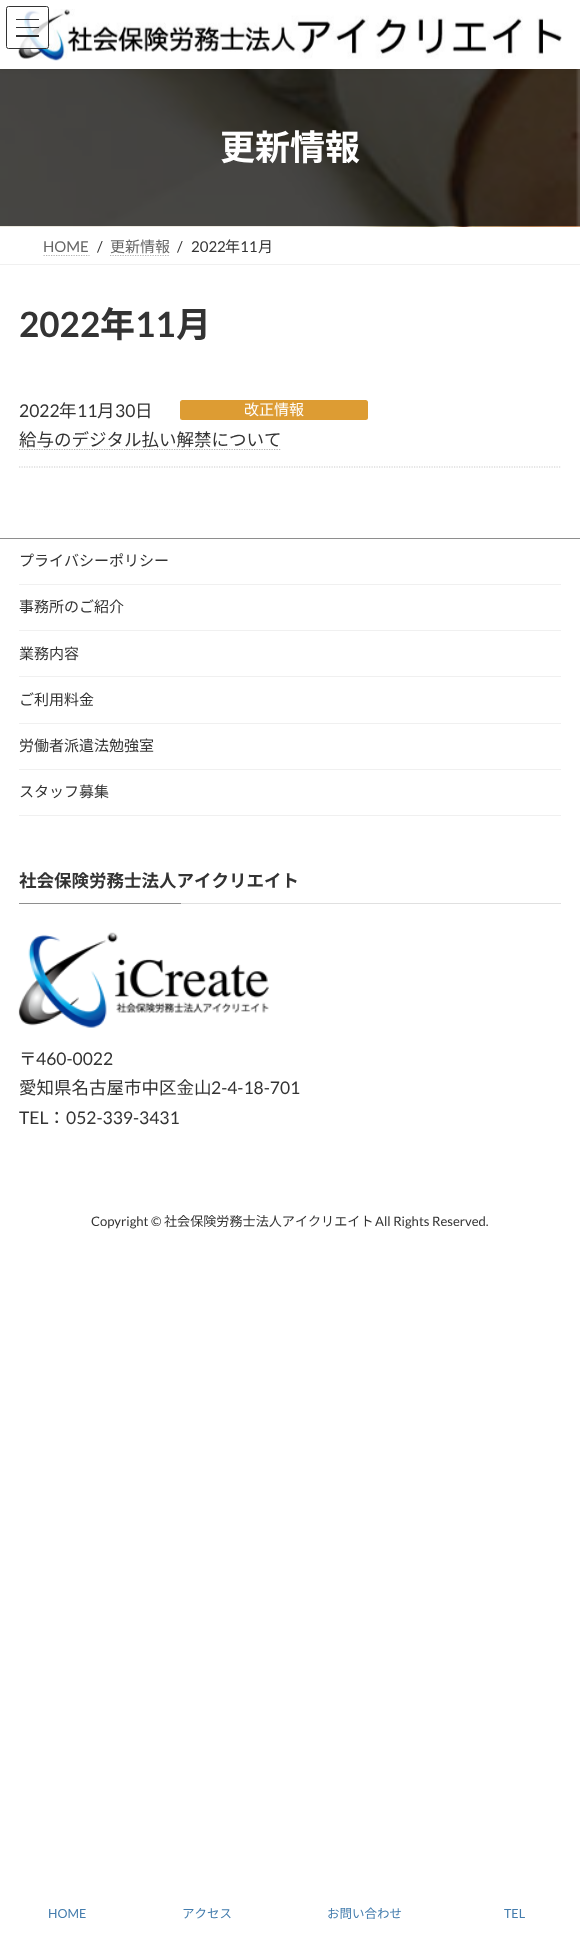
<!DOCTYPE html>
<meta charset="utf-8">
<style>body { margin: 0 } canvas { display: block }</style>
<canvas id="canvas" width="580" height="1935"></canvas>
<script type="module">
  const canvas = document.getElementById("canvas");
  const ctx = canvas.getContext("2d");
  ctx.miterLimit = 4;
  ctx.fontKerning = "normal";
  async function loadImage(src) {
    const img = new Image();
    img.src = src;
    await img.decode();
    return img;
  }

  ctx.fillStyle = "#ffffff";
  ctx.fillRect(0, 0, 580, 1935);
  ctx.drawImage(await loadImage("img2.png"), 0, 69, 580, 158);
  ctx.fillStyle = "rgba(0, 0, 0, 0.05)";
  ctx.filter = "blur(2px)";
  ctx.beginPath();
  ctx.rect(0, 1, 580, 69);
  ctx.fill();
  ctx.filter = "none";
  ctx.fillStyle = "#ffffff";
  ctx.fillRect(0, 0, 580, 69);
  ctx.drawImage(await loadImage("img1.png"), 18, 9, 544, 52);
  ctx.fillStyle = "rgba(255, 255, 255, 0.8)";
  ctx.beginPath();
  ctx.roundRect(6, 6, 43, 43, 2.5);
  ctx.fill();
  ctx.fillStyle = "rgba(0, 0, 0, 0.8)";
  ctx.fillRect(16, 19, 23, 1);
  ctx.fillRect(16, 27, 23, 1);
  ctx.fillRect(16, 35, 23, 2);
  ctx.beginPath();
  ctx.roundRect(6.5, 6.5, 42, 42, 2);
  ctx.strokeStyle = "#333333";
  ctx.stroke();
  ctx.font = "bold 35px Noto Sans JP";
  ctx.fillStyle = "#ffffff";
  ctx.fillText("更新情報", 220, 160);
  ctx.fillStyle = "#f0f0f0";
  ctx.fillRect(0, 264, 580, 1);
  ctx.font = "15px Lato";
  ctx.fillStyle = "#666666";
  ctx.fillText("HOME", 43, 252);
  ctx.beginPath();
  ctx.moveTo(43.5, 255.5);
  ctx.lineTo(89.5, 255.5);
  ctx.strokeStyle = "#b3b3b3";
  ctx.lineWidth = 1.2;
  ctx.setLineDash([1.25, 1.25]);
  ctx.stroke();
  ctx.fillStyle = "#333333";
  ctx.fillText("/", 97, 252);
  ctx.font = "15px Noto Sans JP";
  ctx.fillStyle = "#666666";
  ctx.fillText("更新情報", 110, 252);
  ctx.beginPath();
  ctx.moveTo(110, 255.5);
  ctx.lineTo(170, 255.5);
  ctx.stroke();
  ctx.font = "15px Lato";
  ctx.fillStyle = "#333333";
  ctx.fillText("/", 177, 252);
  ctx.fillText("2022", 191, 252);
  ctx.font = "15px Noto Sans JP";
  ctx.fillText("年", 225, 252);
  ctx.font = "15px Lato";
  ctx.fillText("11", 240, 252);
  ctx.font = "15px Noto Sans JP";
  ctx.fillText("月", 258, 252);
  ctx.font = "bold 35px Lato";
  ctx.fillText("2022", 19, 337);
  ctx.font = "bold 35px Noto Sans JP";
  ctx.fillText("年", 100, 337);
  ctx.font = "bold 35px Lato";
  ctx.fillText("11", 135, 337);
  ctx.font = "bold 35px Noto Sans JP";
  ctx.fillText("月", 176, 337);
  ctx.beginPath();
  ctx.moveTo(19, 467);
  ctx.lineTo(561, 467);
  ctx.strokeStyle = "#cccccc";
  ctx.stroke();
  ctx.font = "17.5px Lato";
  ctx.fillText("2022", 19, 417);
  ctx.font = "17.5px Noto Sans JP";
  ctx.fillText("年", 59, 417);
  ctx.font = "17.5px Lato";
  ctx.fillText("11", 77, 417);
  ctx.font = "17.5px Noto Sans JP";
  ctx.fillText("月", 97, 417);
  ctx.font = "17.5px Lato";
  ctx.fillText("30", 115, 417);
  ctx.font = "17.5px Noto Sans JP";
  ctx.fillText("日", 135, 417);
  ctx.fillStyle = "#dd9c33";
  ctx.beginPath();
  ctx.roundRect(180, 400, 188, 20, 2.5);
  ctx.fill();
  ctx.font = "15px Noto Sans JP";
  ctx.fillStyle = "#ffffff";
  ctx.fillText("改正情報", 244, 415);
  ctx.font = "17.5px Noto Sans JP";
  ctx.fillStyle = "#333333";
  ctx.fillText("給与のデジタル払い解禁について", 19, 446);
  ctx.beginPath();
  ctx.moveTo(19, 449.5);
  ctx.lineTo(280.5, 449.5);
  ctx.strokeStyle = "#b3b3b3";
  ctx.stroke();
  ctx.fillStyle = "#8e8e8e";
  ctx.fillRect(0, 538, 580, 1);
  ctx.fillStyle = "#f0f0f0";
  ctx.fillRect(19, 584, 542, 1);
  ctx.font = "15px Noto Sans JP";
  ctx.fillStyle = "#333333";
  ctx.fillText("プライバシーポリシー", 19, 566);
  ctx.fillStyle = "#f0f0f0";
  ctx.fillRect(19, 630, 542, 1);
  ctx.fillStyle = "#333333";
  ctx.fillText("事務所のご紹介", 19, 612);
  ctx.fillStyle = "#f0f0f0";
  ctx.fillRect(19, 676, 542, 1);
  ctx.fillStyle = "#333333";
  ctx.fillText("業務内容", 19, 659);
  ctx.fillStyle = "#f0f0f0";
  ctx.fillRect(19, 723, 542, 1);
  ctx.fillStyle = "#333333";
  ctx.fillText("ご利用料金", 19, 705);
  ctx.fillStyle = "#f0f0f0";
  ctx.fillRect(19, 769, 542, 1);
  ctx.fillStyle = "#333333";
  ctx.fillText("労働者派遣法勉強室", 19, 751);
  ctx.fillStyle = "#f0f0f0";
  ctx.fillRect(19, 815, 542, 1);
  ctx.fillStyle = "#333333";
  ctx.fillText("スタッフ募集", 19, 797);
  ctx.fillStyle = "#e0e0e0";
  ctx.fillRect(181, 903, 380, 1);
  ctx.font = "bold 17.5px Noto Sans JP";
  ctx.fillStyle = "#333333";
  ctx.fillText("社会保険労務士法人アイクリエイト", 19, 887);
  ctx.fillStyle = "#8e8e8e";
  ctx.fillRect(19, 903, 162, 1);
  ctx.drawImage(await loadImage("img3.png"), 18, 932, 251, 96);
  ctx.font = "17.5px Noto Sans JP";
  ctx.fillStyle = "#333333";
  ctx.fillText("〒", 19, 1065);
  ctx.font = "17.5px Lato";
  ctx.fillText("460-0022", 36, 1065);
  ctx.font = "17.5px Noto Sans JP";
  ctx.fillText("愛知県名古屋市中区金山", 19, 1094);
  ctx.font = "17.5px Lato";
  ctx.fillText("2-4-18-701", 211, 1094);
  ctx.fillText("TEL", 19, 1124);
  ctx.font = "17.5px Noto Sans JP";
  ctx.fillText("：", 48, 1124);
  ctx.font = "17.5px Lato";
  ctx.fillText("052-339-3431", 66, 1124);
  ctx.font = "13.1px Lato";
  ctx.fillText("Copyright ©", 91, 1226);
  ctx.font = "13.1px Noto Sans JP";
  ctx.fillText("社会保険労務士法人アイクリエイト", 164, 1226);
  ctx.font = "13.1px Lato";
  ctx.fillText("All Rights Reserved.", 375, 1226);
  ctx.font = "12.5px Lato";
  ctx.fillStyle = "#437cad";
  ctx.fillText("HOME", 48, 1918);
  ctx.font = "12.5px Noto Sans JP";
  ctx.fillText("アクセス", 182, 1918);
  ctx.fillText("お問い合わせ", 327, 1918);
  ctx.font = "12.5px Lato";
  ctx.fillText("TEL", 504, 1918);
</script>
